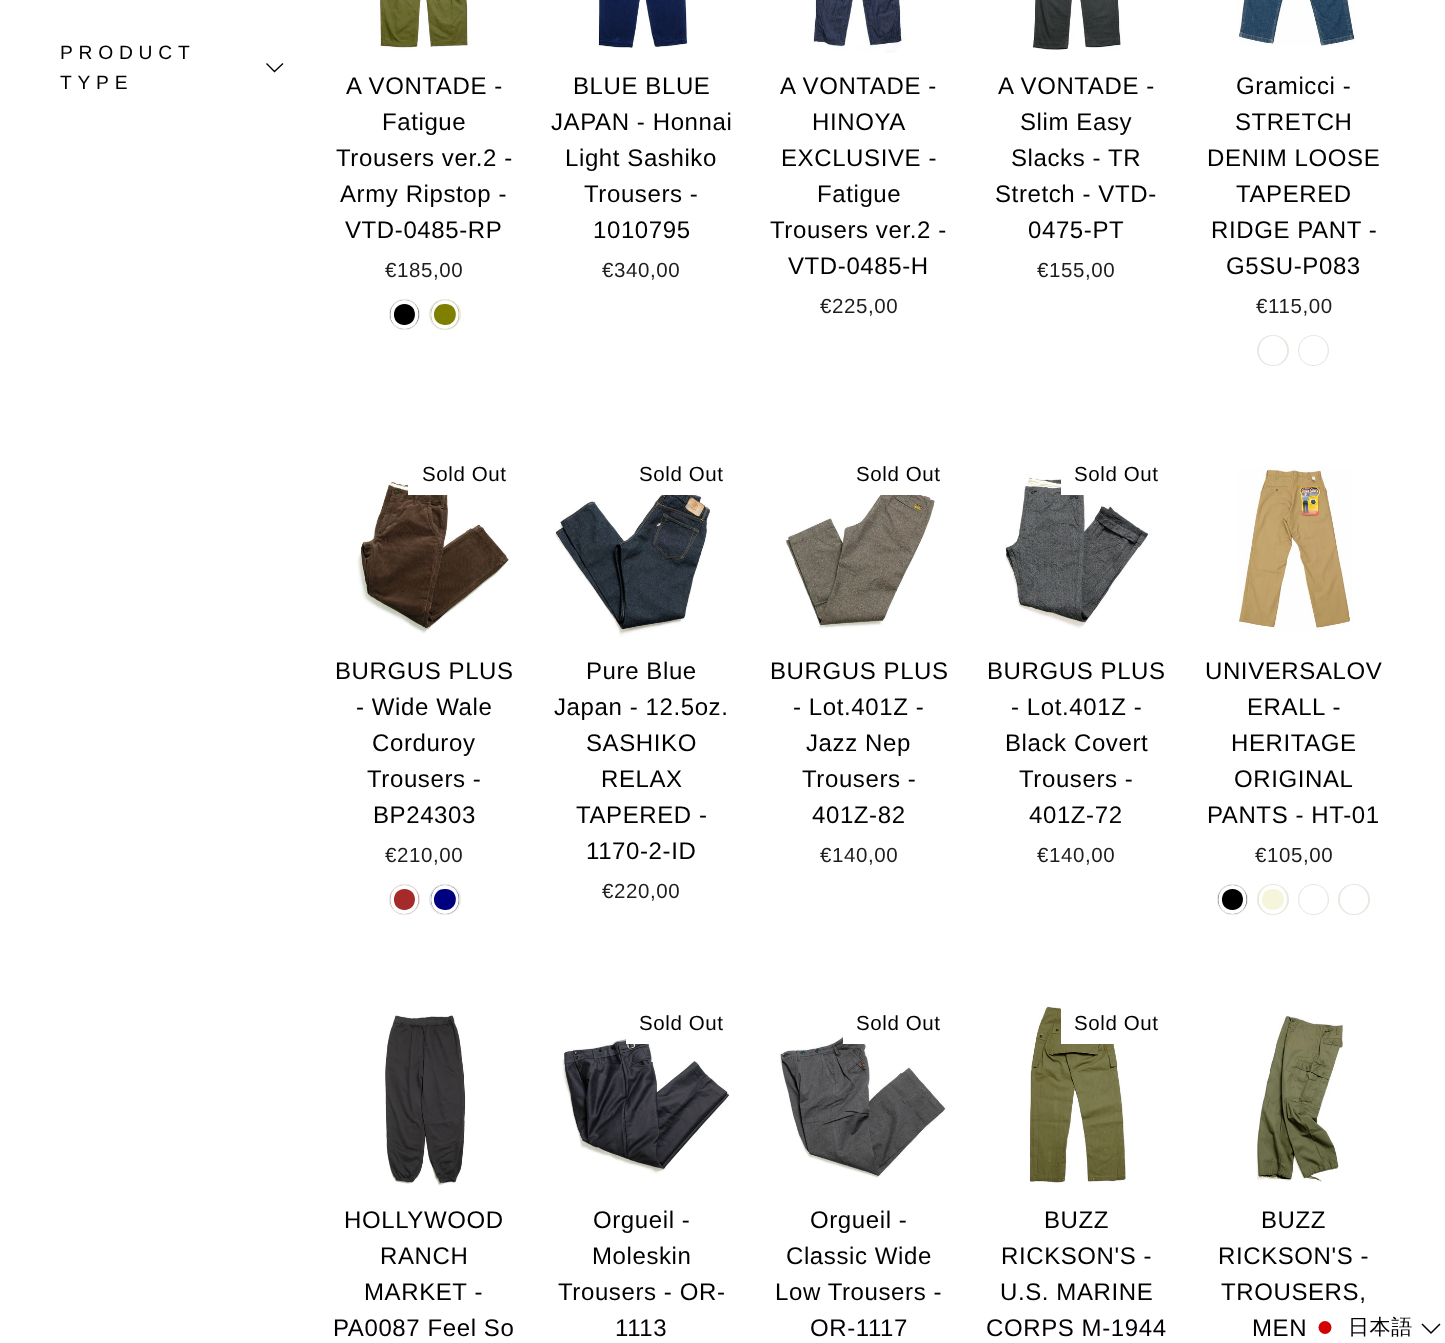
<!DOCTYPE html>
<meta charset="utf-8">
<style>body { margin: 0 } canvas { display: block }</style>
<canvas id="canvas" width="1445" height="1343"></canvas>
<script type="module">
  const canvas = document.getElementById("canvas");
  const ctx = canvas.getContext("2d");
  ctx.miterLimit = 4;
  ctx.fontKerning = "normal";
  async function loadImage(src) {
    const img = new Image();
    img.src = src;
    await img.decode();
    return img;
  }

  ctx.fillStyle = "#ffffff";
  ctx.fillRect(0, 0, 1445, 1343);
  ctx.letterSpacing = "5.75px";
  ctx.font = "19.25px Liberation Sans";
  ctx.fillStyle = "#000000";
  ctx.fillText("PRODUCT", 60, 59);
  ctx.beginPath();
  ctx.moveTo(266.5, 63.5);
  ctx.lineTo(274.5, 71.5);
  ctx.lineTo(283, 63.5);
  ctx.strokeStyle = "#000000";
  ctx.lineWidth = 1.3;
  ctx.stroke();
  ctx.fillText("TYPE", 60, 89);
  ctx.drawImage(await loadImage("img1.png"), 379, 0, 92, 50);
  ctx.letterSpacing = "0.6px";
  ctx.font = "24px Liberation Sans";
  ctx.fillText("A VONTADE -", 346, 94);
  ctx.fillText("Fatigue", 382, 130);
  ctx.fillText("Trousers ver.2 -", 336, 166);
  ctx.fillText("Army Ripstop -", 340, 202);
  ctx.fillText("VTD-0485-RP", 345, 238);
  ctx.font = "20.5px Liberation Sans";
  ctx.fillStyle = "#1c1d1d";
  ctx.fillText("€185,00", 385, 277);
  ctx.beginPath();
  ctx.arc(404.5, 314.5, 14.5, 0, Math.PI * 2);
  ctx.strokeStyle = "#e8e8e1";
  ctx.lineWidth = 2;
  ctx.stroke();
  ctx.fillStyle = "#000000";
  ctx.beginPath();
  ctx.arc(404.5, 314.5, 14.5, 0, Math.PI * 2);
  ctx.fill();
  ctx.fillStyle = "#ffffff";
  ctx.beginPath();
  ctx.moveTo(404.5, 300);
  ctx.bezierCurveTo(385.5, 300, 385.5, 329, 404.5, 329);
  ctx.bezierCurveTo(423.5, 329, 423.5, 300, 404.5, 300);
  ctx.closePath();
  ctx.moveTo(404.5, 304);
  ctx.bezierCurveTo(390.5, 304, 390.5, 325, 404.5, 325);
  ctx.bezierCurveTo(418.5, 325, 418.5, 304, 404.5, 304);
  ctx.closePath();
  ctx.fill("evenodd");
  ctx.beginPath();
  ctx.roundRect(430, 300, 30, 29, 14.5);
  ctx.stroke();
  ctx.fillStyle = "#808000";
  ctx.beginPath();
  ctx.roundRect(431, 300, 28, 29, 14);
  ctx.fill();
  ctx.fillStyle = "#ffffff";
  ctx.beginPath();
  ctx.moveTo(445, 300);
  ctx.bezierCurveTo(426.5, 300, 426.5, 329, 445, 329);
  ctx.bezierCurveTo(463.5, 329, 463.5, 300, 445, 300);
  ctx.closePath();
  ctx.moveTo(444.5, 304);
  ctx.bezierCurveTo(431, 304, 430, 324, 444.5, 325);
  ctx.bezierCurveTo(459, 326, 460, 304, 445.5, 304);
  ctx.closePath();
  ctx.fill("evenodd");
  ctx.drawImage(await loadImage("img2.png"), 598, 0, 90, 49);
  ctx.font = "24px Liberation Sans";
  ctx.fillStyle = "#000000";
  ctx.fillText("BLUE BLUE", 573, 94);
  ctx.fillText("JAPAN - Honnai", 551, 130);
  ctx.fillText("Light Sashiko", 565, 166);
  ctx.fillText("Trousers -", 584, 202);
  ctx.fillText("1010795", 593, 238);
  ctx.font = "20.5px Liberation Sans";
  ctx.fillStyle = "#1c1d1d";
  ctx.fillText("€340,00", 602, 277);
  ctx.drawImage(await loadImage("img3.png"), 813, 0, 93, 53);
  ctx.font = "24px Liberation Sans";
  ctx.fillStyle = "#000000";
  ctx.fillText("A VONTADE -", 780, 94);
  ctx.fillText("HINOYA", 812, 130);
  ctx.fillText("EXCLUSIVE -", 781, 166);
  ctx.fillText("Fatigue", 817, 202);
  ctx.fillText("Trousers ver.2 -", 770, 238);
  ctx.fillText("VTD-0485-H", 788, 274);
  ctx.font = "20.5px Liberation Sans";
  ctx.fillStyle = "#1c1d1d";
  ctx.fillText("€225,00", 820, 313);
  ctx.drawImage(await loadImage("img4.png"), 1032, 0, 89, 50);
  ctx.font = "24px Liberation Sans";
  ctx.fillStyle = "#000000";
  ctx.fillText("A VONTADE -", 998, 94);
  ctx.fillText("Slim Easy", 1020, 130);
  ctx.fillText("Slacks - TR", 1011, 166);
  ctx.fillText("Stretch - VTD-", 995, 202);
  ctx.fillText("0475-PT", 1028, 238);
  ctx.font = "20.5px Liberation Sans";
  ctx.fillStyle = "#1c1d1d";
  ctx.fillText("€155,00", 1037, 277);
  ctx.drawImage(await loadImage("img5.png"), 1238, 0, 118, 46);
  ctx.font = "24px Liberation Sans";
  ctx.fillStyle = "#000000";
  ctx.fillText("Gramicci -", 1236, 94);
  ctx.fillText("STRETCH", 1235, 130);
  ctx.fillText("DENIM LOOSE", 1207, 166);
  ctx.fillText("TAPERED", 1236, 202);
  ctx.fillText("RIDGE PANT -", 1211, 238);
  ctx.fillText("G5SU-P083", 1226, 274);
  ctx.font = "20.5px Liberation Sans";
  ctx.fillStyle = "#1c1d1d";
  ctx.fillText("€115,00", 1256, 313);
  ctx.beginPath();
  ctx.roundRect(1258, 336, 30, 29, 14.5);
  ctx.stroke();
  ctx.fillStyle = "#ffffff";
  ctx.beginPath();
  ctx.moveTo(1273, 336);
  ctx.bezierCurveTo(1254.5, 336, 1254.5, 365, 1273, 365);
  ctx.bezierCurveTo(1291.5, 365, 1291.5, 336, 1273, 336);
  ctx.closePath();
  ctx.moveTo(1272.5, 340);
  ctx.bezierCurveTo(1258, 340, 1259, 362, 1273.5, 361);
  ctx.bezierCurveTo(1288, 360, 1287, 340, 1273.5, 340);
  ctx.closePath();
  ctx.fill("evenodd");
  ctx.beginPath();
  ctx.arc(1313.5, 350.5, 14.5, 0, Math.PI * 2);
  ctx.stroke();
  ctx.beginPath();
  ctx.moveTo(1313.5, 336);
  ctx.bezierCurveTo(1294.5, 336, 1294.5, 365, 1313.5, 365);
  ctx.bezierCurveTo(1332.5, 365, 1332.5, 336, 1313.5, 336);
  ctx.closePath();
  ctx.moveTo(1313.5, 340);
  ctx.bezierCurveTo(1299.5, 340, 1299.5, 361, 1313.5, 361);
  ctx.bezierCurveTo(1327.5, 361, 1327.5, 340, 1313.5, 340);
  ctx.closePath();
  ctx.fill("evenodd");
  ctx.drawImage(await loadImage("img6.png"), 357, 480, 152, 154);
  ctx.fillRect(408, 483, 41, 12);
  ctx.fillStyle = "#000000";
  ctx.fillText("Sold Out", 422, 481);
  ctx.font = "24px Liberation Sans";
  ctx.fillText("BURGUS PLUS", 335, 679);
  ctx.fillText("- Wide Wale", 356, 715);
  ctx.fillText("Corduroy", 372, 751);
  ctx.fillText("Trousers -", 367, 787);
  ctx.fillText("BP24303", 373, 823);
  ctx.font = "20.5px Liberation Sans";
  ctx.fillStyle = "#1c1d1d";
  ctx.fillText("€210,00", 385, 862);
  ctx.beginPath();
  ctx.arc(404.5, 899.5, 14.5, 0, Math.PI * 2);
  ctx.stroke();
  ctx.fillStyle = "#a52a2a";
  ctx.beginPath();
  ctx.arc(404.5, 899.5, 14.5, 0, Math.PI * 2);
  ctx.fill();
  ctx.fillStyle = "#ffffff";
  ctx.beginPath();
  ctx.moveTo(404.5, 885);
  ctx.bezierCurveTo(385.5, 885, 385.5, 914, 404.5, 914);
  ctx.bezierCurveTo(423.5, 914, 423.5, 885, 404.5, 885);
  ctx.closePath();
  ctx.moveTo(404.5, 889);
  ctx.bezierCurveTo(390.5, 889, 390.5, 910, 404.5, 910);
  ctx.bezierCurveTo(418.5, 910, 418.5, 889, 404.5, 889);
  ctx.closePath();
  ctx.fill("evenodd");
  ctx.beginPath();
  ctx.roundRect(430, 885, 30, 29, 14.5);
  ctx.stroke();
  ctx.fillStyle = "#000080";
  ctx.beginPath();
  ctx.roundRect(431, 885, 28, 29, 14);
  ctx.fill();
  ctx.fillStyle = "#ffffff";
  ctx.beginPath();
  ctx.moveTo(445, 885);
  ctx.bezierCurveTo(426.5, 885, 426.5, 914, 445, 914);
  ctx.bezierCurveTo(463.5, 914, 463.5, 885, 445, 885);
  ctx.closePath();
  ctx.moveTo(444.5, 889);
  ctx.bezierCurveTo(431, 889, 430, 909, 444.5, 910);
  ctx.bezierCurveTo(459, 911, 460, 889, 445.5, 889);
  ctx.closePath();
  ctx.fill("evenodd");
  ctx.drawImage(await loadImage("img7.png"), 555, 481, 156, 156);
  ctx.fillRect(660, 481, 38, 14);
  ctx.fillStyle = "#000000";
  ctx.fillText("Sold Out", 639, 481);
  ctx.font = "24px Liberation Sans";
  ctx.fillText("Pure Blue", 586, 679);
  ctx.fillText("Japan - 12.5oz.", 554, 715);
  ctx.fillText("SASHIKO", 586, 751);
  ctx.fillText("RELAX", 601, 787);
  ctx.fillText("TAPERED -", 576, 823);
  ctx.fillText("1170-2-ID", 586, 859);
  ctx.font = "20.5px Liberation Sans";
  ctx.fillStyle = "#1c1d1d";
  ctx.fillText("€220,00", 602, 898);
  ctx.drawImage(await loadImage("img8.png"), 785, 477, 150, 152);
  ctx.fillStyle = "#ffffff";
  ctx.fillRect(879, 477, 44, 18);
  ctx.fillStyle = "#000000";
  ctx.fillText("Sold Out", 856, 481);
  ctx.font = "24px Liberation Sans";
  ctx.fillText("BURGUS PLUS", 770, 679);
  ctx.fillText("- Lot.401Z -", 793, 715);
  ctx.fillText("Jazz Nep", 806, 751);
  ctx.fillText("Trousers -", 802, 787);
  ctx.fillText("401Z-82", 812, 823);
  ctx.font = "20.5px Liberation Sans";
  ctx.fillStyle = "#1c1d1d";
  ctx.fillText("€140,00", 820, 862);
  ctx.drawImage(await loadImage("img9.png"), 1005, 475, 143, 154);
  ctx.fillStyle = "#ffffff";
  ctx.fillRect(1061, 478, 24, 17);
  ctx.fillStyle = "#000000";
  ctx.fillText("Sold Out", 1074, 481);
  ctx.font = "24px Liberation Sans";
  ctx.fillText("BURGUS PLUS", 987, 679);
  ctx.fillText("- Lot.401Z -", 1011, 715);
  ctx.fillText("Black Covert", 1005, 751);
  ctx.fillText("Trousers -", 1019, 787);
  ctx.fillText("401Z-72", 1029, 823);
  ctx.font = "20.5px Liberation Sans";
  ctx.fillStyle = "#1c1d1d";
  ctx.fillText("€140,00", 1037, 862);
  ctx.drawImage(await loadImage("img10.png"), 1238, 467, 115, 164);
  ctx.font = "24px Liberation Sans";
  ctx.fillStyle = "#000000";
  ctx.fillText("UNIVERSALOV", 1205, 679);
  ctx.fillText("ERALL -", 1247, 715);
  ctx.fillText("HERITAGE", 1231, 751);
  ctx.fillText("ORIGINAL", 1234, 787);
  ctx.fillText("PANTS - HT-01", 1207, 823);
  ctx.font = "20.5px Liberation Sans";
  ctx.fillStyle = "#1c1d1d";
  ctx.fillText("€105,00", 1255, 862);
  ctx.beginPath();
  ctx.arc(1232.5, 899.5, 14.5, 0, Math.PI * 2);
  ctx.stroke();
  ctx.fillStyle = "#000000";
  ctx.beginPath();
  ctx.arc(1232.5, 899.5, 14.5, 0, Math.PI * 2);
  ctx.fill();
  ctx.fillStyle = "#ffffff";
  ctx.beginPath();
  ctx.moveTo(1232.5, 885);
  ctx.bezierCurveTo(1213.5, 885, 1213.5, 914, 1232.5, 914);
  ctx.bezierCurveTo(1251.5, 914, 1251.5, 885, 1232.5, 885);
  ctx.closePath();
  ctx.moveTo(1232.5, 889);
  ctx.bezierCurveTo(1218.5, 889, 1218.5, 910, 1232.5, 910);
  ctx.bezierCurveTo(1246.5, 910, 1246.5, 889, 1232.5, 889);
  ctx.closePath();
  ctx.fill("evenodd");
  ctx.beginPath();
  ctx.roundRect(1258, 885, 30, 29, 14.5);
  ctx.stroke();
  ctx.fillStyle = "#f5f5dc";
  ctx.beginPath();
  ctx.roundRect(1259, 885, 28, 29, 14);
  ctx.fill();
  ctx.fillStyle = "#ffffff";
  ctx.beginPath();
  ctx.moveTo(1273, 885);
  ctx.bezierCurveTo(1254.5, 885, 1254.5, 914, 1273, 914);
  ctx.bezierCurveTo(1291.5, 914, 1291.5, 885, 1273, 885);
  ctx.closePath();
  ctx.moveTo(1272.5, 889);
  ctx.bezierCurveTo(1258, 889, 1259, 911, 1273.5, 910);
  ctx.bezierCurveTo(1288, 909, 1287, 889, 1273.5, 889);
  ctx.closePath();
  ctx.fill("evenodd");
  ctx.beginPath();
  ctx.arc(1313.5, 899.5, 14.5, 0, Math.PI * 2);
  ctx.stroke();
  ctx.beginPath();
  ctx.moveTo(1313.5, 885);
  ctx.bezierCurveTo(1294.5, 885, 1294.5, 914, 1313.5, 914);
  ctx.bezierCurveTo(1332.5, 914, 1332.5, 885, 1313.5, 885);
  ctx.closePath();
  ctx.moveTo(1313.5, 889);
  ctx.bezierCurveTo(1299.5, 889, 1299.5, 910, 1313.5, 910);
  ctx.bezierCurveTo(1327.5, 910, 1327.5, 889, 1313.5, 889);
  ctx.closePath();
  ctx.fill("evenodd");
  ctx.beginPath();
  ctx.roundRect(1339, 885, 30, 29, 14.5);
  ctx.stroke();
  ctx.beginPath();
  ctx.moveTo(1354, 885);
  ctx.bezierCurveTo(1335.5, 885, 1335.5, 914, 1354, 914);
  ctx.bezierCurveTo(1372.5, 914, 1372.5, 885, 1354, 885);
  ctx.closePath();
  ctx.moveTo(1353.5, 889);
  ctx.bezierCurveTo(1340, 889, 1339, 909, 1353.5, 910);
  ctx.bezierCurveTo(1368, 911, 1369, 889, 1354.5, 889);
  ctx.closePath();
  ctx.fill("evenodd");
  ctx.drawImage(await loadImage("img11.png"), 385, 1015, 81, 171);
  ctx.font = "24px Liberation Sans";
  ctx.fillStyle = "#000000";
  ctx.fillText("HOLLYWOOD", 344, 1228);
  ctx.fillText("RANCH", 380, 1264);
  ctx.fillText("MARKET -", 364, 1300);
  ctx.fillText("PA0087 Feel So", 333, 1336);
  ctx.drawImage(await loadImage("img12.png"), 562, 1034, 168, 140);
  ctx.fillStyle = "#ffffff";
  ctx.fillRect(626, 1034, 24, 10);
  ctx.font = "20.5px Liberation Sans";
  ctx.fillStyle = "#000000";
  ctx.fillText("Sold Out", 639, 1030);
  ctx.font = "24px Liberation Sans";
  ctx.fillText("Orgueil -", 593, 1228);
  ctx.fillText("Moleskin", 592, 1264);
  ctx.fillText("Trousers - OR-", 558, 1300);
  ctx.fillText("1113", 615, 1336);
  ctx.drawImage(await loadImage("img13.png"), 779, 1027, 167, 153);
  ctx.fillStyle = "#ffffff";
  ctx.fillRect(843, 1027, 22, 17);
  ctx.font = "20.5px Liberation Sans";
  ctx.fillStyle = "#000000";
  ctx.fillText("Sold Out", 856, 1030);
  ctx.font = "24px Liberation Sans";
  ctx.fillText("Orgueil -", 810, 1228);
  ctx.fillText("Classic Wide", 786, 1264);
  ctx.fillText("Low Trousers -", 775, 1300);
  ctx.fillText("OR-1117", 810, 1336);
  ctx.drawImage(await loadImage("img14.png"), 1029, 1004, 97, 180);
  ctx.fillStyle = "#ffffff";
  ctx.fillRect(1061, 1004, 54, 40);
  ctx.font = "20.5px Liberation Sans";
  ctx.fillStyle = "#000000";
  ctx.fillText("Sold Out", 1074, 1030);
  ctx.font = "24px Liberation Sans";
  ctx.fillText("BUZZ", 1044, 1228);
  ctx.fillText("RICKSON'S -", 1001, 1264);
  ctx.fillText("U.S. MARINE", 1000, 1300);
  ctx.fillText("CORPS M-1944", 986, 1336);
  ctx.drawImage(await loadImage("img15.png"), 1256, 1015, 88, 167);
  ctx.fillText("BUZZ", 1261, 1228);
  ctx.fillText("RICKSON'S -", 1218, 1264);
  ctx.fillText("TROUSERS,", 1221, 1300);
  ctx.fillText("MEN", 1252, 1336);
  ctx.fillStyle = "#d30000";
  ctx.beginPath();
  ctx.arc(1325, 1327.5, 6.5, 0, Math.PI * 2);
  ctx.fill();
  ctx.font = "500 21px WenQuanYi Zen Hei";
  ctx.fillStyle = "#000000";
  ctx.fillText("日本語", 1348, 1334);
  ctx.beginPath();
  ctx.moveTo(1422, 1324);
  ctx.lineTo(1431, 1333);
  ctx.lineTo(1440, 1324);
  ctx.strokeStyle = "#000000";
  ctx.lineWidth = 1.5;
  ctx.stroke();
</script>
